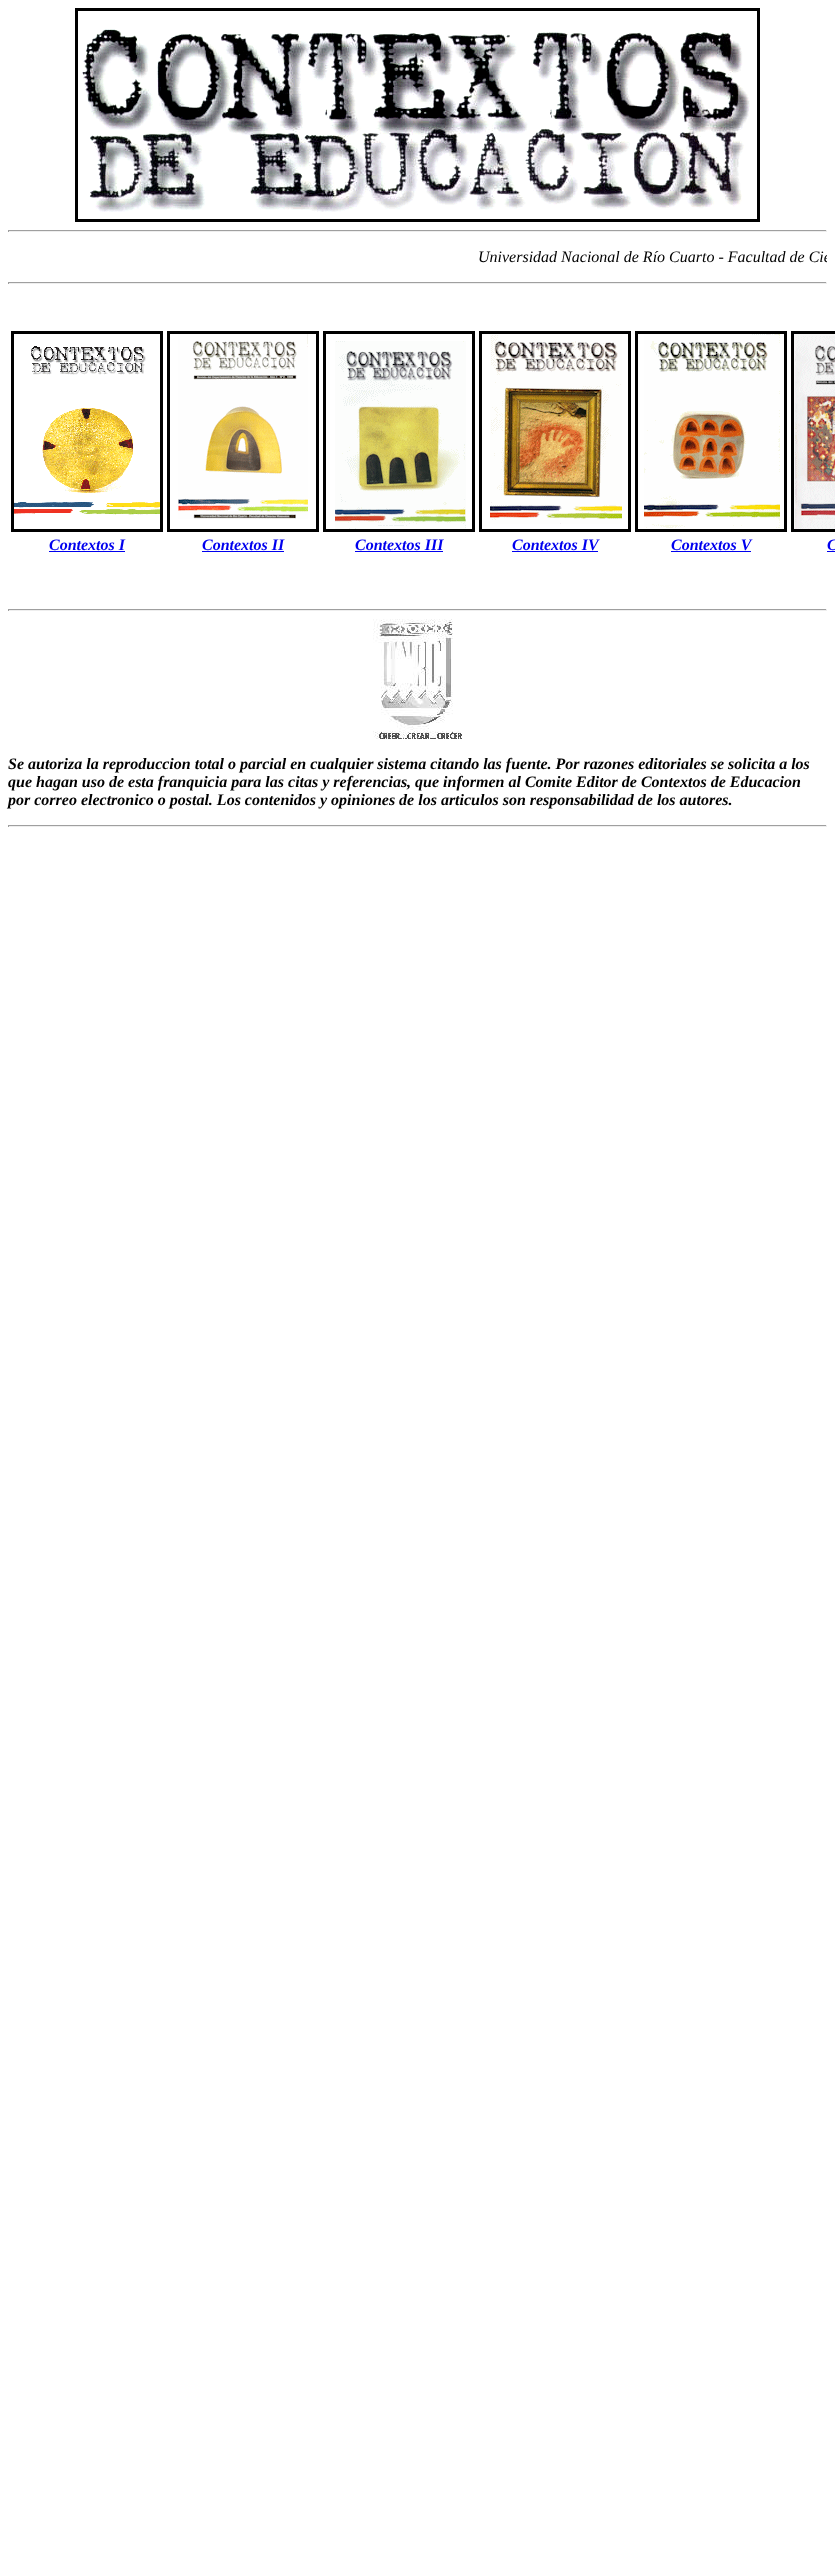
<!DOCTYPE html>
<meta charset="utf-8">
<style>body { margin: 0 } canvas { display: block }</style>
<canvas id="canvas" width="835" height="2562"></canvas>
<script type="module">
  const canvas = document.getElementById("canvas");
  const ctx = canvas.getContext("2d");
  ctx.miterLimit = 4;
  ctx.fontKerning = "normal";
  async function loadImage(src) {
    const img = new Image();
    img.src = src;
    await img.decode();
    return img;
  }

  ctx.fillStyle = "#ffffff";
  ctx.fillRect(0, 0, 835, 2562);
  ctx.strokeStyle = "#000000";
  ctx.lineWidth = 3;
  ctx.strokeRect(76.5, 9.5, 682, 211);
  ctx.drawImage(await loadImage("img1.png"), 82, 29, 668, 183);
  ctx.fillStyle = "#9f9f9f";
  ctx.fillRect(8, 230, 819, 1);
  ctx.fillStyle = "#eeeeee";
  ctx.fillRect(826, 230, 1, 2);
  ctx.fillRect(8, 231, 819, 1);
  ctx.fillStyle = "#9f9f9f";
  ctx.fillRect(8, 230, 1, 2);
  ctx.save();
  ctx.beginPath();
  ctx.rect(8, 248, 819, 18);
  ctx.clip();
  ctx.font = "italic 16px Liberation Serif";
  ctx.fillStyle = "#000000";
  ctx.fillText("Universidad Nacional de Río Cuarto - Facultad de Cie", 478, 262);
  ctx.restore();
  ctx.fillRect(8, 282, 819, 1);
  ctx.fillStyle = "#eeeeee";
  ctx.fillRect(826, 282, 1, 2);
  ctx.fillRect(8, 283, 819, 1);
  ctx.fillStyle = "#9f9f9f";
  ctx.fillRect(8, 282, 1, 2);
  ctx.strokeRect(12.5, 332.5, 149, 198);
  ctx.drawImage(await loadImage("img2.png"), 14, 346, 146, 169);
  ctx.strokeRect(168.5, 332.5, 149, 198);
  ctx.drawImage(await loadImage("img3.png"), 178, 334, 130, 185);
  ctx.strokeRect(324.5, 332.5, 149, 198);
  ctx.drawImage(await loadImage("img4.png"), 335, 341, 131, 188);
  ctx.strokeRect(480.5, 332.5, 149, 198);
  ctx.drawImage(await loadImage("img5.png"), 490, 335, 132, 189);
  ctx.strokeRect(636.5, 332.5, 149, 198);
  ctx.drawImage(await loadImage("img6.png"), 644, 334, 136, 194);
  ctx.strokeRect(792.5, 332.5, 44, 198);
  ctx.drawImage(await loadImage("img7.png"), 794, 334, 41, 195);
  ctx.font = "italic bold 16px Liberation Serif";
  ctx.fillStyle = "#0000ee";
  ctx.fillText("Contextos I", 49, 550);
  ctx.fillRect(49, 551, 76, 1);
  ctx.fillText("Contextos II", 202, 550);
  ctx.fillRect(202, 551, 82, 1);
  ctx.fillText("Contextos III", 355, 550);
  ctx.fillRect(355, 551, 88, 1);
  ctx.fillText("Contextos IV", 512, 550);
  ctx.fillRect(512, 551, 86, 1);
  ctx.fillText("Contextos V", 671, 550);
  ctx.fillRect(671, 551, 80, 1);
  ctx.fillText("C", 827, 550);
  ctx.fillRect(827, 551, 8, 1);
  ctx.fillStyle = "#9f9f9f";
  ctx.fillRect(8, 609, 819, 1);
  ctx.fillStyle = "#eeeeee";
  ctx.fillRect(826, 609, 1, 2);
  ctx.fillRect(8, 610, 819, 1);
  ctx.fillStyle = "#9f9f9f";
  ctx.fillRect(8, 609, 1, 2);
  ctx.drawImage(await loadImage("img8.png"), 373, 619, 89, 120);
  ctx.fillStyle = "#000000";
  ctx.fillText("Se autoriza la reproduccion total o parcial en cualquier sistema citando las fuente. Por razones editoriales se solicita a los", 8, 769);
  ctx.fillText("que hagan uso de esta franquicia para las citas y referencias, que informen al Comite Editor de Contextos de Educacion", 8, 787);
  ctx.fillText("por correo electronico o postal. Los contenidos y opiniones de los articulos son responsabilidad de los autores.", 8, 805);
  ctx.fillStyle = "#9f9f9f";
  ctx.fillRect(8, 825, 819, 1);
  ctx.fillStyle = "#eeeeee";
  ctx.fillRect(826, 825, 1, 2);
  ctx.fillRect(8, 826, 819, 1);
  ctx.fillStyle = "#9f9f9f";
  ctx.fillRect(8, 825, 1, 2);
</script>
